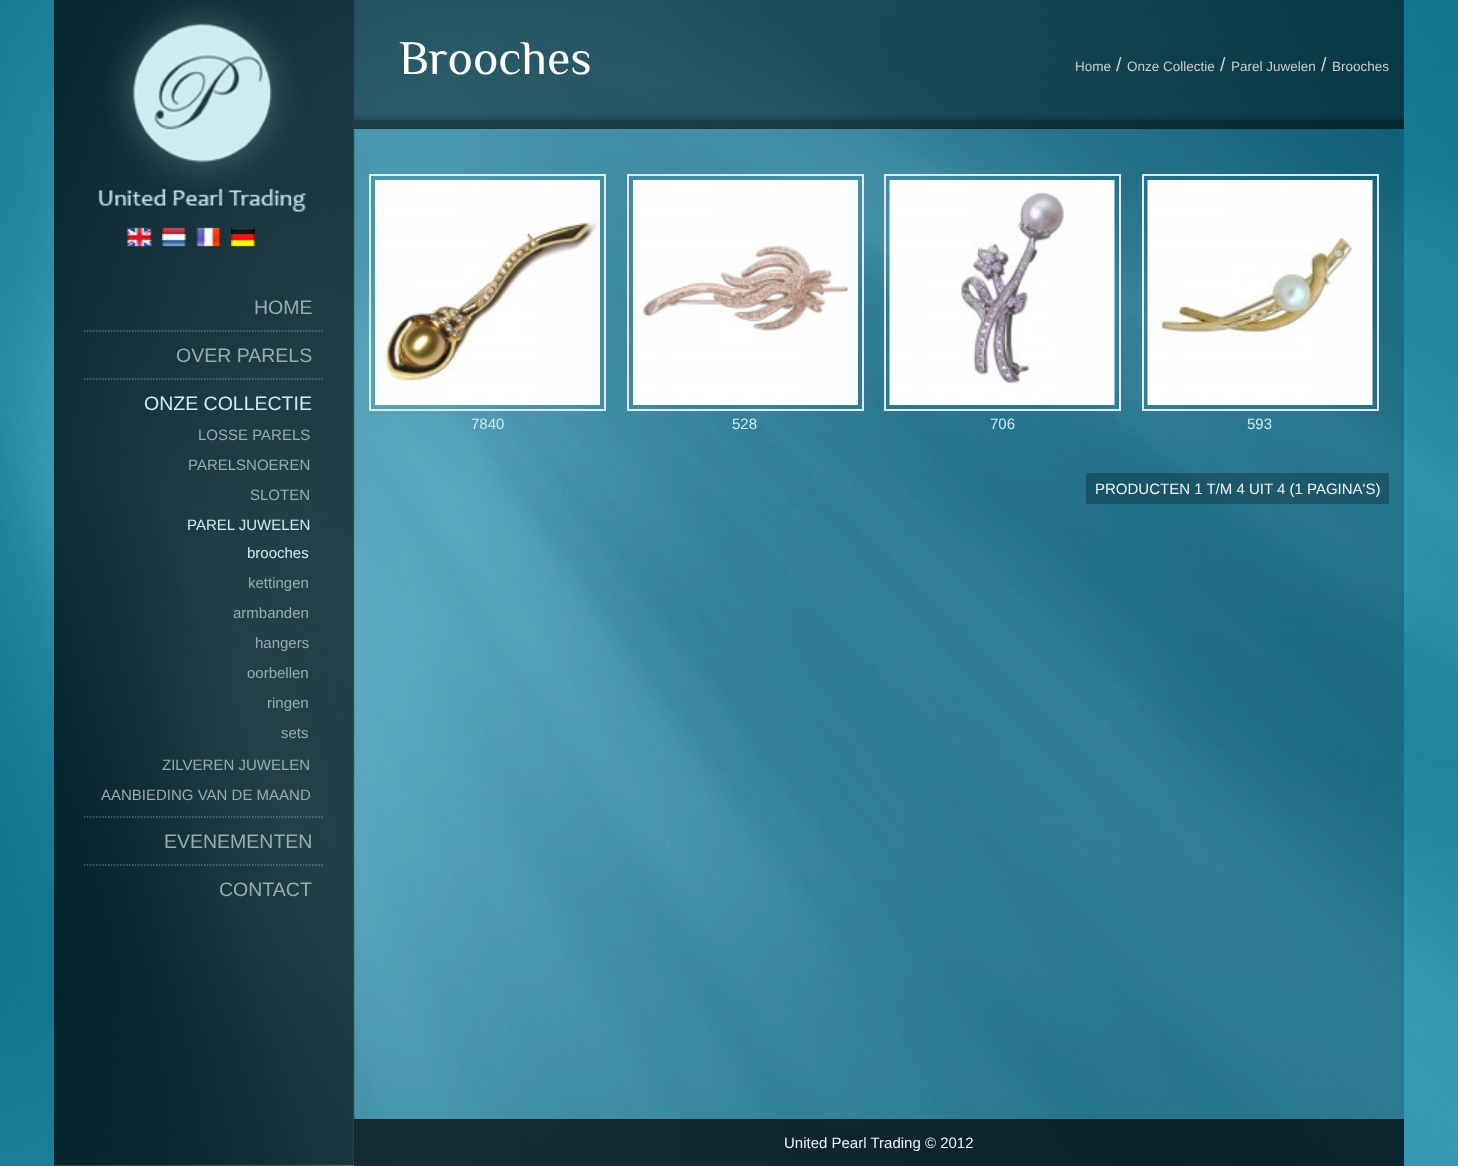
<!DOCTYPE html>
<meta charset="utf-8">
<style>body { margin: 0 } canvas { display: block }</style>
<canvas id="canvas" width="1458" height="1166"></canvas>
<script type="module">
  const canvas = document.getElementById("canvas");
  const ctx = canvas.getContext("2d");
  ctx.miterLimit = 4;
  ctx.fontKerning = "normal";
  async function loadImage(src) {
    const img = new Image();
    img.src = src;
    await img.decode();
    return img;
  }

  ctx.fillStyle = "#ffffff";
  ctx.fillRect(0, 0, 1458, 1166);
  ctx.drawImage(await loadImage("img1.png"), 0, 0, 1458, 1166);
  ctx.drawImage(await loadImage("img2.png"), 54, 0, 1350, 1166);
  ctx.drawImage(await loadImage("img3.png"), 98, 0, 209, 212);
  ctx.drawImage(await loadImage("img4.png"), 127, 227, 25, 21);
  ctx.drawImage(await loadImage("img5.png"), 162, 227, 24, 21);
  ctx.drawImage(await loadImage("img6.png"), 196, 227, 25, 21);
  ctx.drawImage(await loadImage("img7.png"), 231, 227, 24, 21);
  ctx.font = "19.5px Liberation Sans";
  ctx.fillStyle = "#99abaf";
  ctx.fillText("HOME", 254, 314);
  ctx.beginPath();
  ctx.moveTo(84, 331);
  ctx.lineTo(324, 331);
  ctx.strokeStyle = "rgba(255, 255, 255, 0.3)";
  ctx.lineWidth = 1.5;
  ctx.setLineDash([1.5, 1.5]);
  ctx.stroke();
  ctx.fillText("OVER PARELS", 176, 362);
  ctx.beginPath();
  ctx.moveTo(84, 379);
  ctx.lineTo(324, 379);
  ctx.stroke();
  ctx.fillStyle = "#d0eaf1";
  ctx.fillText("ONZE COLLECTIE", 144, 410);
  ctx.font = "15px Liberation Sans";
  ctx.fillStyle = "#99abaf";
  ctx.fillText("LOSSE PARELS", 198, 440);
  ctx.fillText("PARELSNOEREN", 188, 470);
  ctx.fillText("SLOTEN", 250, 500);
  ctx.fillStyle = "#d0eaf1";
  ctx.fillText("PAREL JUWELEN", 187, 530);
  ctx.fillText("brooches", 247, 558);
  ctx.fillStyle = "#99abaf";
  ctx.fillText("kettingen", 248, 588);
  ctx.fillText("armbanden", 233, 618);
  ctx.fillText("hangers", 255, 648);
  ctx.fillText("oorbellen", 247, 678);
  ctx.fillText("ringen", 267, 708);
  ctx.fillText("sets", 281, 738);
  ctx.fillText("ZILVEREN JUWELEN", 162, 770);
  ctx.fillText("AANBIEDING VAN DE MAAND", 101, 800);
  ctx.beginPath();
  ctx.moveTo(84, 817);
  ctx.lineTo(324, 817);
  ctx.stroke();
  ctx.font = "19.5px Liberation Sans";
  ctx.fillText("EVENEMENTEN", 164, 848);
  ctx.beginPath();
  ctx.moveTo(84, 865);
  ctx.lineTo(324, 865);
  ctx.stroke();
  ctx.fillText("CONTACT", 219, 896);
  ctx.drawImage(await loadImage("img8.png"), 354, 115, 1050, 14);
  ctx.fillStyle = "rgba(0, 0, 0, 0.4)";
  ctx.fillRect(354, 0, 1050, 129);
  ctx.font = "48px Philosopher";
  ctx.fillStyle = "#ffffff";
  ctx.fillText("Brooches", 399, 74);
  ctx.font = "13.5px Liberation Sans";
  ctx.fillStyle = "#cccccc";
  ctx.fillText("Home", 1075, 71);
  ctx.font = "19.5px Liberation Sans";
  ctx.fillText("/", 1116, 71);
  ctx.font = "13.5px Liberation Sans";
  ctx.fillText("Onze Collectie", 1127, 71);
  ctx.font = "19.5px Liberation Sans";
  ctx.fillText("/", 1220, 71);
  ctx.font = "13.5px Liberation Sans";
  ctx.fillText("Parel Juwelen", 1231, 71);
  ctx.font = "19.5px Liberation Sans";
  ctx.fillText("/", 1321, 71);
  ctx.font = "13.5px Liberation Sans";
  ctx.fillText("Brooches", 1332, 71);
  ctx.strokeStyle = "#e7e7e7";
  ctx.lineWidth = 2;
  ctx.setLineDash([]);
  ctx.strokeRect(370, 175, 235, 235);
  ctx.drawImage(await loadImage("img9.png"), 375, 180, 225, 225);
  ctx.font = "15px Liberation Sans";
  ctx.fillStyle = "#d0eaf1";
  ctx.fillText("7840", 471, 429);
  ctx.strokeRect(628, 175, 235, 235);
  ctx.drawImage(await loadImage("img10.png"), 633, 180, 225, 225);
  ctx.fillText("528", 732, 429);
  ctx.strokeRect(885, 175, 235, 235);
  ctx.drawImage(await loadImage("img11.png"), 889, 180, 226, 225);
  ctx.fillText("706", 990, 429);
  ctx.strokeRect(1143, 175, 235, 235);
  ctx.drawImage(await loadImage("img12.png"), 1147, 180, 226, 225);
  ctx.fillText("593", 1247, 429);
  ctx.fillStyle = "rgba(0, 0, 0, 0.25)";
  ctx.fillRect(1086, 473, 303, 31);
  ctx.fillStyle = "#eaf4f7";
  ctx.fillText("PRODUCTEN 1 T/M 4 UIT 4 (1 PAGINA'S)", 1095, 494);
  ctx.fillStyle = "rgba(0, 0, 0, 0.7)";
  ctx.fillRect(354, 1119, 1050, 47);
  ctx.fillStyle = "#eaf4f7";
  ctx.fillText("United Pearl Trading © 2012", 784, 1148);
</script>
